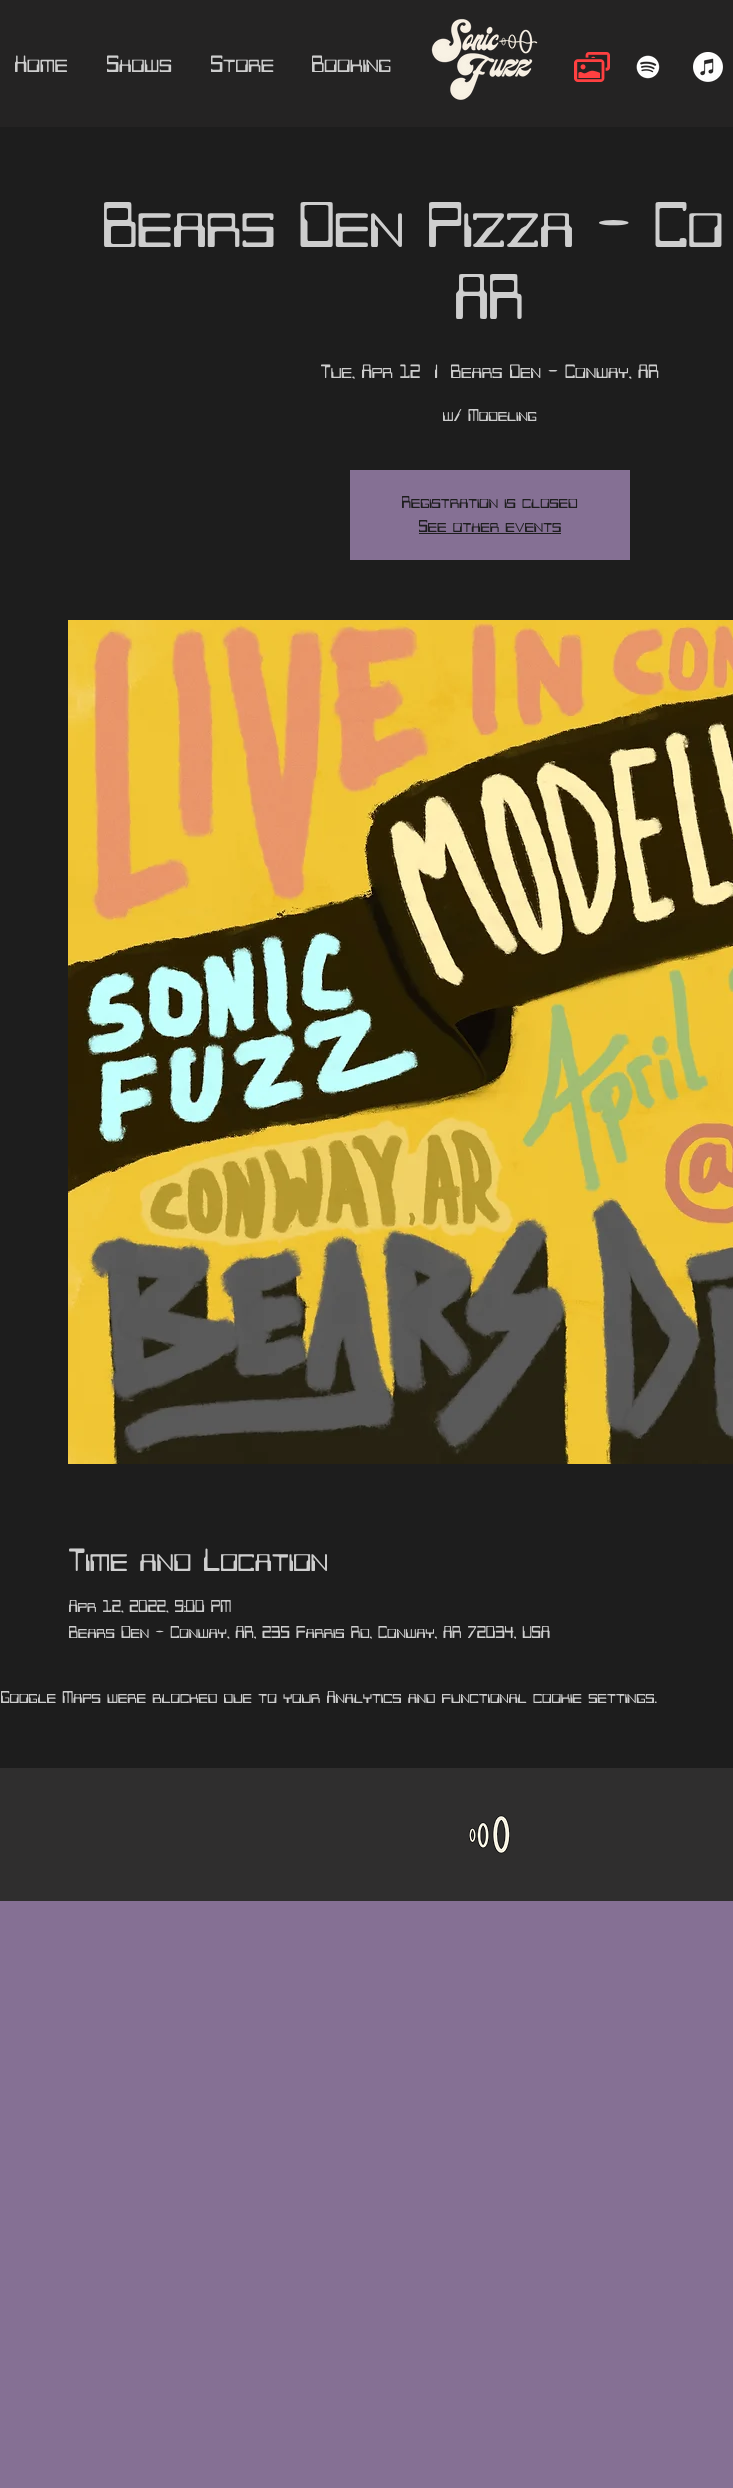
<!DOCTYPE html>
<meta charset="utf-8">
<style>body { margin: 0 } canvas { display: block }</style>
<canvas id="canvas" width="733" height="2488"></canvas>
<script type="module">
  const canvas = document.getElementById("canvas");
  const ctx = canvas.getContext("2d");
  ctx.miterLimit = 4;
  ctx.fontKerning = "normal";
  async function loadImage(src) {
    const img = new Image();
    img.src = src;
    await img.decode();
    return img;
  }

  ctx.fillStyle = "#857094";
  ctx.fillRect(0, 0, 733, 2488);
  ctx.fillStyle = "#242323";
  ctx.fillRect(0, 0, 733, 127);
  ctx.font = "22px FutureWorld";
  ctx.fillStyle = "#cecece";
  ctx.fillText("Home", 15, 72);
  ctx.fillText("Shows", 107, 72);
  ctx.fillText("Store", 211, 72);
  ctx.fillText("Booking", 312, 72);
  ctx.drawImage(await loadImage("img1.png"), 431, 18, 107, 82);
  ctx.drawImage(await loadImage("img2.png"), 574, 52, 36, 30);
  ctx.drawImage(await loadImage("img3.png"), 636, 55, 24, 24);
  ctx.drawImage(await loadImage("img4.png"), 693, 52, 30, 30);
  ctx.fillStyle = "#1d1d1d";
  ctx.fillRect(0, 127, 733, 1641);
  ctx.font = "60px FutureWorld";
  ctx.fillStyle = "#cecece";
  ctx.fillText("Bears Den Pizza - Co", 104, 247);
  ctx.fillText("AR", 456, 319);
  ctx.font = "18px FutureWorld";
  ctx.fillText("Tue, Apr 12", 321, 378);
  ctx.fillText("|", 435, 378);
  ctx.fillText("Bears Den - Conway, AR", 451, 378);
  ctx.font = "16px FutureWorld";
  ctx.fillText("w/ Modeling", 443, 421);
  ctx.fillStyle = "#857094";
  ctx.fillRect(350, 470, 280, 90);
  ctx.fillStyle = "#1d1d1d";
  ctx.fillText("Registration is closed", 402, 508);
  ctx.fillText("See other events", 419, 532);
  ctx.fillRect(419, 533, 142, 1);
  ctx.drawImage(await loadImage("img5.png"), 68, 620, 665, 844);
  ctx.font = "30px FutureWorld";
  ctx.fillStyle = "#cecece";
  ctx.fillText("Time and Location", 69, 1571);
  ctx.font = "16px FutureWorld";
  ctx.fillText("Apr 12, 2022, 9:00 PM", 69, 1612);
  ctx.fillText("Bears Den - Conway, AR, 235 Farris Rd, Conway, AR 72034, USA", 69, 1638);
  ctx.fillText("Google Maps were blocked due to your Analytics and functional cookie settings.", 1, 1703);
  ctx.fillStyle = "#2f2e2e";
  ctx.fillRect(0, 1768, 733, 133);
  ctx.drawImage(await loadImage("img6.png"), 468, 1815, 42, 39);
</script>
